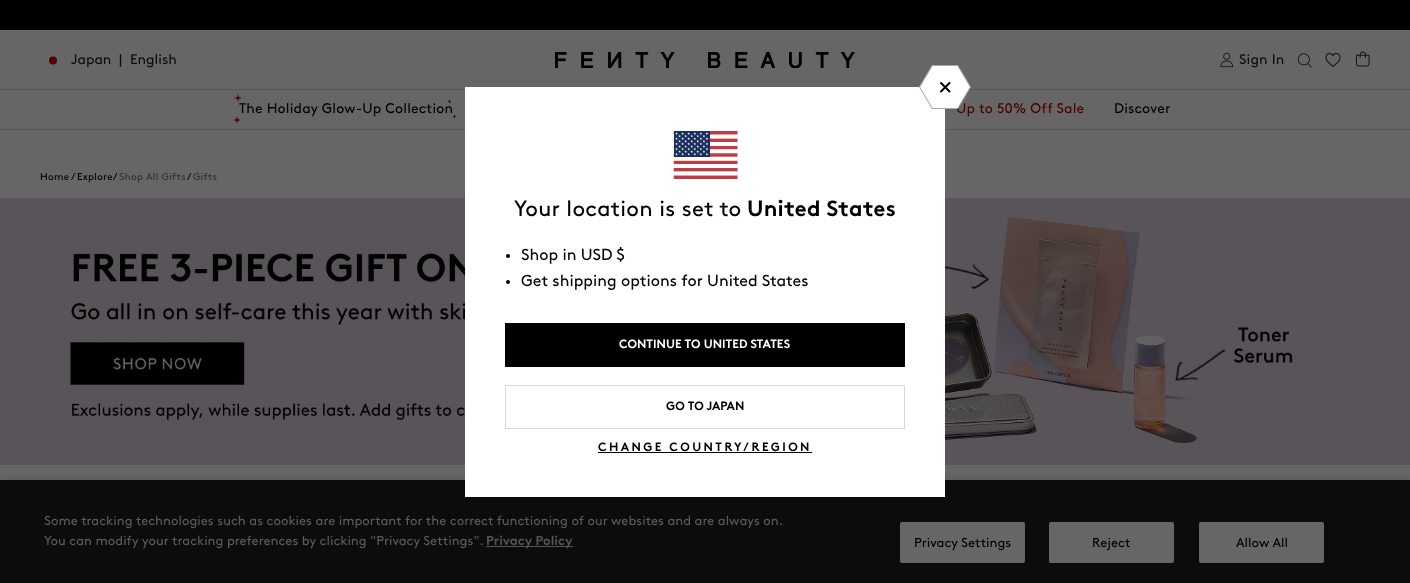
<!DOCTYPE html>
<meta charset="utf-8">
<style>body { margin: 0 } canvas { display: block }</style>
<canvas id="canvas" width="1410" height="583"></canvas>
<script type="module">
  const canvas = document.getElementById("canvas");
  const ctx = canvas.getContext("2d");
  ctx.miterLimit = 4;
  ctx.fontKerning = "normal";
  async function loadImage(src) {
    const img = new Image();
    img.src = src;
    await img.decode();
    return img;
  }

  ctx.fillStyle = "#666666";
  ctx.fillRect(0, 0, 1410, 583);
  ctx.fillStyle = "#000000";
  ctx.fillRect(0, 0, 1410, 30);
  ctx.fillStyle = "#565656";
  ctx.fillRect(0, 89, 1410, 1);
  ctx.fillStyle = "#540000";
  ctx.beginPath();
  ctx.arc(53, 60.5, 4, 0, Math.PI * 2);
  ctx.fill();
  ctx.font = "14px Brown";
  ctx.fillStyle = "#0e0c0d";
  ctx.fillText("Japan", 71, 64);
  ctx.fillText("|", 119, 64);
  ctx.fillText("English", 130, 64);
  ctx.drawImage(await loadImage("img1.png"), 555, 52, 300, 16);
  ctx.drawImage(await loadImage("img2.png"), 1220, 52, 14, 16);
  ctx.letterSpacing = "0.15px";
  ctx.fillText("Sign In", 1239, 64);
  ctx.drawImage(await loadImage("img3.png"), 1297, 53, 15, 15);
  ctx.drawImage(await loadImage("img4.png"), 1325, 53, 16, 14);
  ctx.drawImage(await loadImage("img5.png"), 1356, 51, 14, 16);
  ctx.fillStyle = "#565656";
  ctx.fillRect(0, 129, 1410, 1);
  ctx.fillStyle = "#000000";
  ctx.fillText("The Holiday Glow-Up Collection", 239, 113);
  ctx.drawImage(await loadImage("img6.png"), 447, 99, 5, 5);
  ctx.drawImage(await loadImage("img7.png"), 234, 94, 8, 8);
  ctx.drawImage(await loadImage("img8.png"), 452, 114, 5, 5);
  ctx.drawImage(await loadImage("img9.png"), 233, 116, 8, 8);
  ctx.fillStyle = "#4c0100";
  ctx.fillText("Up to 50% Off Sale", 956, 113);
  ctx.fillStyle = "#000000";
  ctx.fillText("Discover", 1114, 113);
  ctx.letterSpacing = "0.25px";
  ctx.font = "10px Brown";
  ctx.fillText("Home", 40, 180);
  ctx.fillText("/ Explore", 71, 180);
  ctx.fillText("/", 113, 180);
  ctx.fillStyle = "#303030";
  ctx.fillText("Shop All Gifts", 119, 180);
  ctx.fillStyle = "#000000";
  ctx.fillText("/", 187, 180);
  ctx.fillStyle = "#303030";
  ctx.fillText("Gifts", 193, 180);
  ctx.drawImage(await loadImage("img10.png"), 0, 198, 1410, 267);
  ctx.fillStyle = "rgba(0, 0, 0, 0.18)";
  ctx.filter = "blur(3px)";
  ctx.beginPath();
  ctx.rect(0, 480, 1410, 103);
  ctx.fill();
  ctx.filter = "none";
  ctx.fillStyle = "#0c0c0c";
  ctx.fillRect(0, 480, 1410, 103);
  ctx.fillStyle = "#ffffff";
  ctx.fillRect(465, 87, 480, 410);
  ctx.drawImage(await loadImage("img11.png"), 919, 65, 52, 44);
  ctx.drawImage(await loadImage("img12.png"), 673, 131, 65, 48);
  ctx.font = "22px Brown";
  ctx.fillStyle = "#000000";
  ctx.fillText("Your location is set to", 514, 216);
  ctx.font = "bold 22px Brown";
  ctx.fillText("United States", 747, 216);
  ctx.beginPath();
  ctx.arc(508, 256, 2, 0, Math.PI * 2);
  ctx.fill();
  ctx.letterSpacing = "0px";
  ctx.font = "16px Brown";
  ctx.fillText("Shop in USD $", 521, 260);
  ctx.beginPath();
  ctx.arc(508, 282, 2, 0, Math.PI * 2);
  ctx.fill();
  ctx.fillText("Get shipping options for United States", 521, 286);
  ctx.fillRect(505, 323, 400, 44);
  ctx.font = "bold 12px Brown";
  ctx.fillStyle = "#ffffff";
  ctx.fillText("CONTINUE TO UNITED STATES", 619, 348);
  ctx.strokeStyle = "#d8d8d8";
  ctx.strokeRect(505.5, 385.5, 399, 43);
  ctx.fillStyle = "#000000";
  ctx.fillText("GO TO JAPAN", 666, 410);
  ctx.letterSpacing = "2.4px";
  ctx.fillText("CHANGE COUNTRY/REGION", 598, 451);
  ctx.fillRect(598, 452, 214, 1);
  ctx.letterSpacing = "0px";
  ctx.font = "13px Brown";
  ctx.fillStyle = "#5b5b5b";
  ctx.fillText("Some tracking technologies such as cookies are important for the correct functioning of our websites and are always on.", 44, 525);
  ctx.fillText("You can modify your tracking preferences by clicking \"Privacy Settings\".", 44, 545);
  ctx.fillStyle = "#545454";
  ctx.fillRect(486, 546, 87, 1);
  ctx.font = "bold 13px Brown";
  ctx.fillText("Privacy Policy", 486, 545);
  ctx.fillStyle = "#666666";
  ctx.beginPath();
  ctx.roundRect(900, 522, 125, 41, 2);
  ctx.fill();
  ctx.font = "13px Brown";
  ctx.fillStyle = "#000000";
  ctx.fillText("Privacy Settings", 914, 547);
  ctx.fillStyle = "#666666";
  ctx.beginPath();
  ctx.roundRect(1049, 522, 125, 41, 2);
  ctx.fill();
  ctx.fillStyle = "#000000";
  ctx.fillText("Reject", 1092, 547);
  ctx.fillStyle = "#666666";
  ctx.beginPath();
  ctx.roundRect(1199, 522, 125, 41, 2);
  ctx.fill();
  ctx.fillStyle = "#000000";
  ctx.fillText("Allow All", 1236, 547);
</script>
